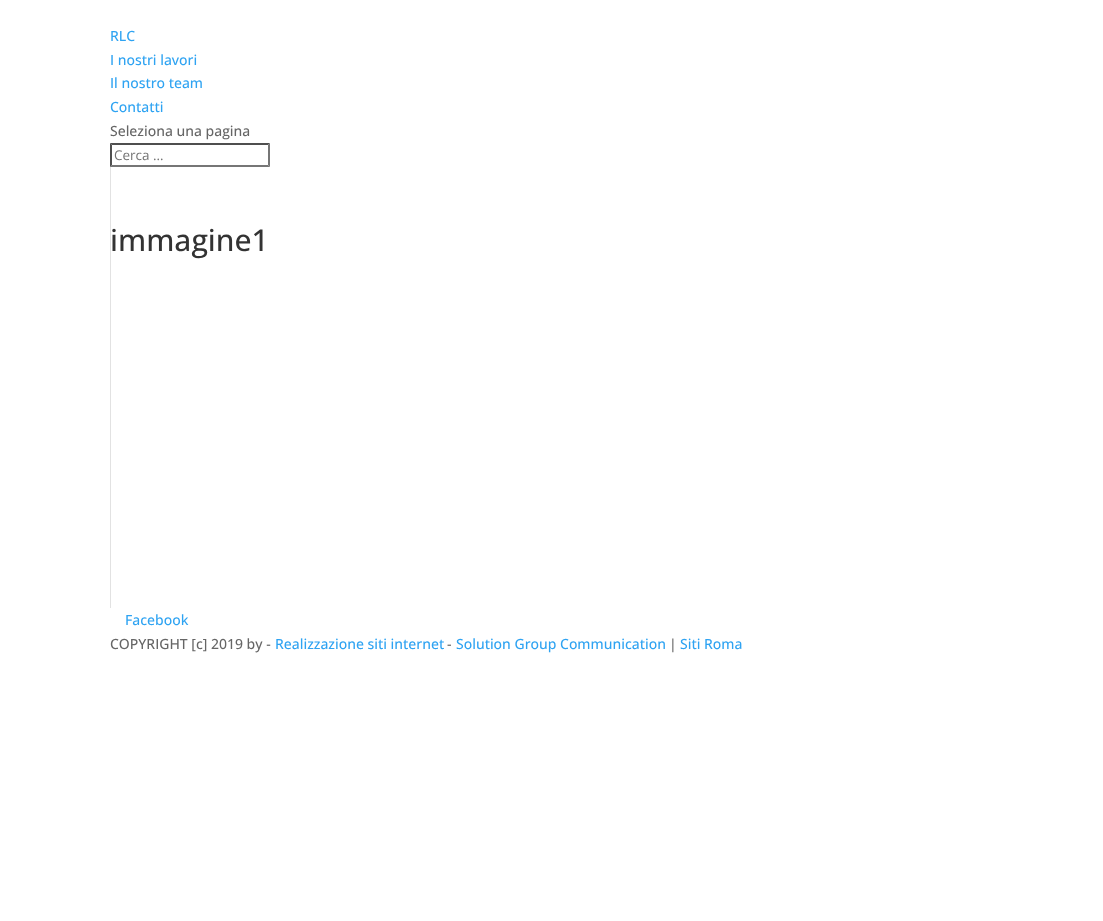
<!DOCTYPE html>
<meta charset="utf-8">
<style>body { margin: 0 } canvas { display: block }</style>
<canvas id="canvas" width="1103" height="921"></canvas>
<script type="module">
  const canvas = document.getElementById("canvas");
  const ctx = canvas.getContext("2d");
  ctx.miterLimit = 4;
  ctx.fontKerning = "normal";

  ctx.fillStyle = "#ffffff";
  ctx.fillRect(0, 0, 1103, 921);
  ctx.font = "500 14px Open Sans";
  ctx.fillStyle = "#2ea3f2";
  ctx.fillText("RLC", 110, 41);
  ctx.fillText("I nostri lavori", 110, 65);
  ctx.fillText("Il nostro team", 110, 88);
  ctx.fillText("Contatti", 110, 112);
  ctx.fillStyle = "#666666";
  ctx.fillText("Seleziona una pagina", 110, 136);
  ctx.fillStyle = "#4f4f4f";
  ctx.beginPath();
  ctx.moveTo(110, 143);
  ctx.lineTo(270, 143);
  ctx.lineTo(268, 145);
  ctx.lineTo(112, 145);
  ctx.closePath();
  ctx.fill();
  ctx.fillStyle = "#767676";
  ctx.beginPath();
  ctx.moveTo(270, 143);
  ctx.lineTo(270, 167);
  ctx.lineTo(268, 165);
  ctx.lineTo(268, 145);
  ctx.closePath();
  ctx.fill();
  ctx.beginPath();
  ctx.moveTo(270, 167);
  ctx.lineTo(110, 167);
  ctx.lineTo(112, 165);
  ctx.lineTo(268, 165);
  ctx.closePath();
  ctx.fill();
  ctx.fillStyle = "#4f4f4f";
  ctx.beginPath();
  ctx.moveTo(110, 167);
  ctx.lineTo(110, 143);
  ctx.lineTo(112, 145);
  ctx.lineTo(112, 165);
  ctx.closePath();
  ctx.fill();
  ctx.font = "13.5px Open Sans";
  ctx.fillStyle = "#757575";
  ctx.fillText("Cerca …", 114, 160);
  ctx.fillStyle = "#e2e2e2";
  ctx.fillRect(110, 167, 1, 441);
  ctx.font = "500 30px Open Sans";
  ctx.fillStyle = "#333333";
  ctx.fillText("immagine1", 110, 251);
  ctx.font = "500 14px Open Sans";
  ctx.fillStyle = "#2ea3f2";
  ctx.fillText("Facebook", 125, 625);
  ctx.fillStyle = "#666666";
  ctx.fillText("COPYRIGHT [c] 2019 by -", 110, 649);
  ctx.fillStyle = "#2ea3f2";
  ctx.fillText("Realizzazione siti internet", 275, 649);
  ctx.fillStyle = "#666666";
  ctx.fillText("-", 447, 649);
  ctx.fillStyle = "#2ea3f2";
  ctx.fillText("Solution Group Communication", 456, 649);
  ctx.fillStyle = "#666666";
  ctx.fillText("|", 669, 649);
  ctx.fillStyle = "#2ea3f2";
  ctx.fillText("Siti Roma", 680, 649);
</script>
